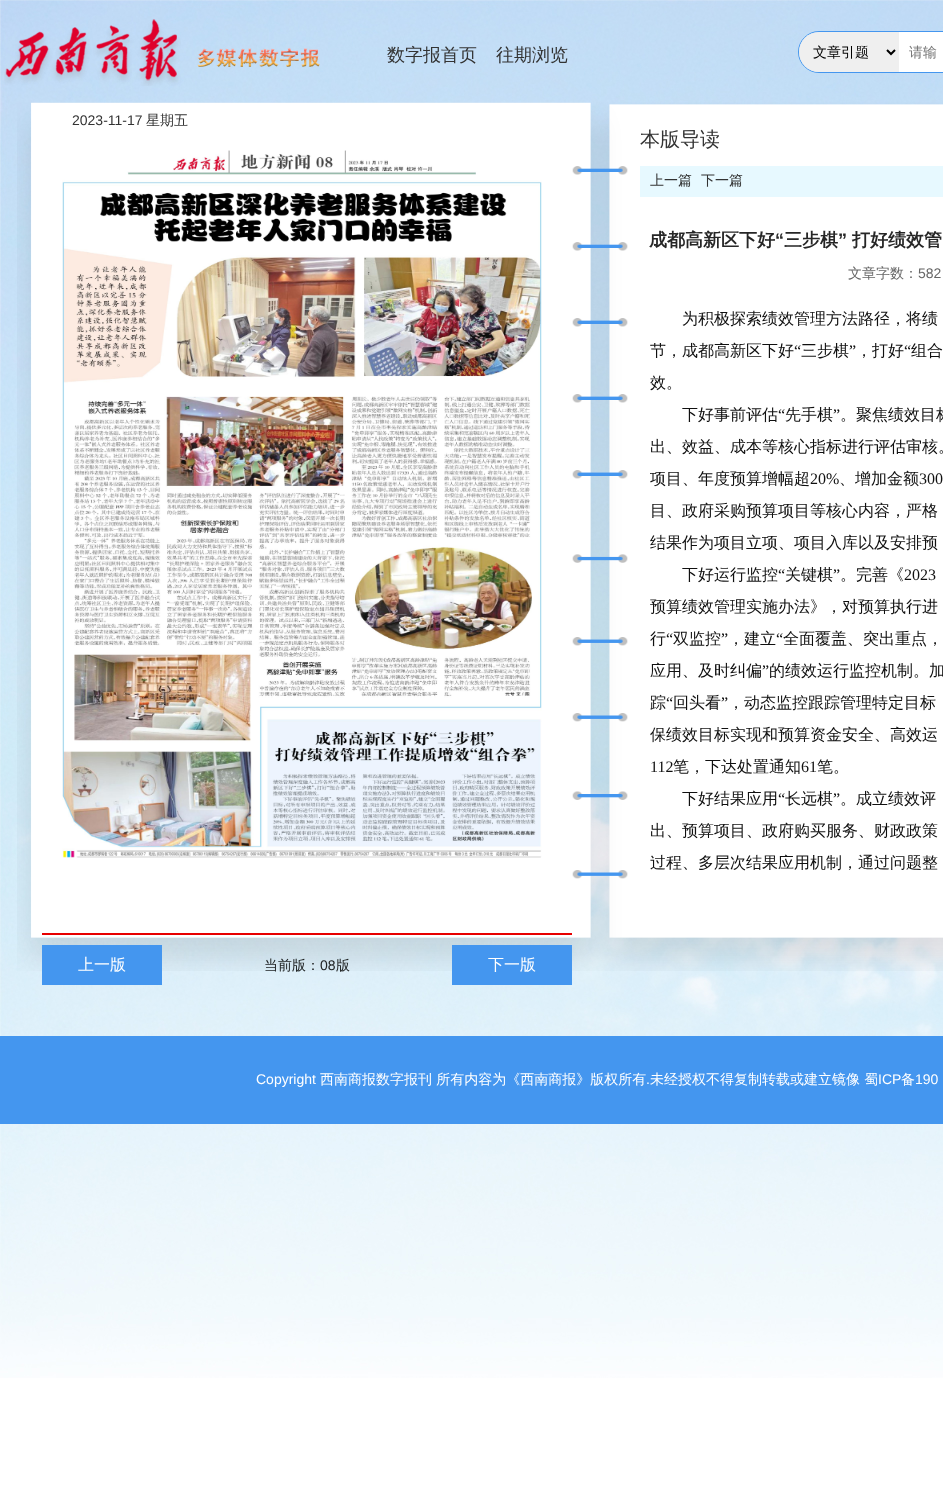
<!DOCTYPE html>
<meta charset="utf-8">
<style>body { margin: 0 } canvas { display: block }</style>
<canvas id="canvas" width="943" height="1490"></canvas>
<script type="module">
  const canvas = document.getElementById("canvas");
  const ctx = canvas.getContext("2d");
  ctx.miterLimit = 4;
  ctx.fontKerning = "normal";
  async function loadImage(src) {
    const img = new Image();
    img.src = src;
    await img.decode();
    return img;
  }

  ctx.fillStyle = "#ffffff";
  ctx.fillRect(0, 0, 943, 1490);
  ctx.drawImage(await loadImage("img1.png"), 0, 0, 943, 1378);
  ctx.drawImage(await loadImage("img2.png"), 4, 19, 316, 67);
  ctx.font = "500 18px WenQuanYi Zen Hei";
  ctx.fillStyle = "#333333";
  ctx.fillText("数字报首页", 387, 61);
  ctx.fillText("往期浏览", 496, 61);
  ctx.beginPath();
  ctx.roundRect(798.5, 31.5, 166, 41, 20.5);
  ctx.strokeStyle = "#4496ef";
  ctx.stroke();
  ctx.fillStyle = "#efefef";
  ctx.beginPath();
  ctx.roundRect(799, 32, 100, 40, [20, 0, 0, 20]);
  ctx.fill();
  ctx.beginPath();
  ctx.moveTo(887, 50);
  ctx.lineTo(891, 54);
  ctx.lineTo(895, 50);
  ctx.strokeStyle = "#000000";
  ctx.lineWidth = 2;
  ctx.stroke();
  ctx.font = "500 14px WenQuanYi Zen Hei";
  ctx.fillStyle = "#000000";
  ctx.fillText("文章引题", 813, 57);
  ctx.fillStyle = "#ffffff";
  ctx.fillRect(899, 32, 44, 40);
  ctx.fillStyle = "#757575";
  ctx.fillText("请输", 909, 57);
  ctx.drawImage(await loadImage("img3.png"), 17, 102, 926, 869);
  ctx.font = "14px Liberation Sans";
  ctx.fillStyle = "#333333";
  ctx.fillText("2023-11-17", 72, 125);
  ctx.font = "500 14px WenQuanYi Zen Hei";
  ctx.fillText("星期五", 146, 125);
  ctx.drawImage(await loadImage("img4.png"), 62, 150, 480, 708);
  ctx.fillStyle = "#e70000";
  ctx.fillRect(42, 933, 530, 2);
  ctx.fillStyle = "#4496ef";
  ctx.fillRect(42, 945, 120, 40);
  ctx.font = "500 16px WenQuanYi Zen Hei";
  ctx.fillStyle = "#ffffff";
  ctx.fillText("上一版", 78, 970);
  ctx.font = "500 14px WenQuanYi Zen Hei";
  ctx.fillStyle = "#202324";
  ctx.fillText("当前版：", 264, 970);
  ctx.font = "14px Liberation Sans";
  ctx.fillText("08", 320, 970);
  ctx.font = "500 14px WenQuanYi Zen Hei";
  ctx.fillText("版", 336, 970);
  ctx.fillStyle = "#4496ef";
  ctx.fillRect(452, 945, 120, 40);
  ctx.font = "500 16px WenQuanYi Zen Hei";
  ctx.fillStyle = "#ffffff";
  ctx.fillText("下一版", 488, 970);
  ctx.font = "500 20px WenQuanYi Zen Hei";
  ctx.fillStyle = "#333333";
  ctx.fillText("本版导读", 640, 146);
  ctx.fillStyle = "#e7f9ff";
  ctx.fillRect(640, 166, 303, 31);
  ctx.font = "500 14px WenQuanYi Zen Hei";
  ctx.fillStyle = "#333333";
  ctx.fillText("上一篇", 650, 185);
  ctx.fillText("下一篇", 701, 185);
  ctx.font = "bold 18px WenQuanYi Zen Hei";
  ctx.fillStyle = "#262626";
  ctx.fillText("成都高新区下好", 649, 246);
  ctx.font = "bold 18px Liberation Sans";
  ctx.fillText("“", 775, 246);
  ctx.font = "bold 18px WenQuanYi Zen Hei";
  ctx.fillText("三步棋", 784, 246);
  ctx.font = "bold 18px Liberation Sans";
  ctx.fillText("”", 838, 246);
  ctx.font = "bold 18px WenQuanYi Zen Hei";
  ctx.fillText("打好绩效管", 852, 246);
  ctx.font = "500 14px WenQuanYi Zen Hei";
  ctx.fillStyle = "#666666";
  ctx.fillText("文章字数：", 848, 278);
  ctx.font = "14px Liberation Sans";
  ctx.fillText("582", 918, 278);
  ctx.font = "500 16px WenQuanYi Zen Hei";
  ctx.fillStyle = "#101010";
  ctx.fillText("为积极探索绩效管理方法路径，将绩", 682, 324);
  ctx.fillText("节，成都高新区下好", 650, 356);
  ctx.font = "16px Liberation Serif";
  ctx.fillText("“", 794, 356);
  ctx.font = "500 16px WenQuanYi Zen Hei";
  ctx.fillText("三步棋", 801, 356);
  ctx.font = "16px Liberation Serif";
  ctx.fillText("”", 849, 356);
  ctx.font = "500 16px WenQuanYi Zen Hei";
  ctx.fillText("，打好", 856, 356);
  ctx.font = "16px Liberation Serif";
  ctx.fillText("“", 904, 356);
  ctx.font = "500 16px WenQuanYi Zen Hei";
  ctx.fillText("组合", 911, 356);
  ctx.fillText("效。", 650, 388);
  ctx.fillText("下好事前评估", 682, 420);
  ctx.font = "16px Liberation Serif";
  ctx.fillText("“", 778, 420);
  ctx.font = "500 16px WenQuanYi Zen Hei";
  ctx.fillText("先手棋", 785, 420);
  ctx.font = "16px Liberation Serif";
  ctx.fillText("”", 833, 420);
  ctx.font = "500 16px WenQuanYi Zen Hei";
  ctx.fillText("。聚焦绩效目标", 840, 420);
  ctx.fillText("出、效益、成本等核心指标进行评估审核。", 650, 452);
  ctx.fillText("项目、年度预算增幅超", 650, 484);
  ctx.font = "16px Liberation Serif";
  ctx.fillText("20%", 810, 484);
  ctx.font = "500 16px WenQuanYi Zen Hei";
  ctx.fillText("、增加金额", 839, 484);
  ctx.font = "16px Liberation Serif";
  ctx.fillText("300", 919, 484);
  ctx.font = "500 16px WenQuanYi Zen Hei";
  ctx.fillText("目、政府采购预算项目等核心内容，严格", 650, 516);
  ctx.fillText("结果作为项目立项、项目入库以及安排预", 650, 548);
  ctx.fillText("下好运行监控", 682, 580);
  ctx.font = "16px Liberation Serif";
  ctx.fillText("“", 778, 580);
  ctx.font = "500 16px WenQuanYi Zen Hei";
  ctx.fillText("关键棋", 785, 580);
  ctx.font = "16px Liberation Serif";
  ctx.fillText("”", 833, 580);
  ctx.font = "500 16px WenQuanYi Zen Hei";
  ctx.fillText("。完善《", 840, 580);
  ctx.font = "16px Liberation Serif";
  ctx.fillText("2023", 904, 580);
  ctx.font = "500 16px WenQuanYi Zen Hei";
  ctx.fillText("预算绩效管理实施办法》，对预算执行进", 650, 612);
  ctx.fillText("行", 650, 644);
  ctx.font = "16px Liberation Serif";
  ctx.fillText("“", 666, 644);
  ctx.font = "500 16px WenQuanYi Zen Hei";
  ctx.fillText("双监控", 673, 644);
  ctx.font = "16px Liberation Serif";
  ctx.fillText("”", 721, 644);
  ctx.font = "500 16px WenQuanYi Zen Hei";
  ctx.fillText("，建立", 728, 644);
  ctx.font = "16px Liberation Serif";
  ctx.fillText("“", 776, 644);
  ctx.font = "500 16px WenQuanYi Zen Hei";
  ctx.fillText("全面覆盖、突出重点，", 783, 644);
  ctx.fillText("应用、及时纠偏", 650, 676);
  ctx.font = "16px Liberation Serif";
  ctx.fillText("”", 762, 676);
  ctx.font = "500 16px WenQuanYi Zen Hei";
  ctx.fillText("的绩效运行监控机制。加", 769, 676);
  ctx.fillText("踪", 650, 708);
  ctx.font = "16px Liberation Serif";
  ctx.fillText("“", 666, 708);
  ctx.font = "500 16px WenQuanYi Zen Hei";
  ctx.fillText("回头看", 673, 708);
  ctx.font = "16px Liberation Serif";
  ctx.fillText("”", 721, 708);
  ctx.font = "500 16px WenQuanYi Zen Hei";
  ctx.fillText("，动态监控跟踪管理特定目标", 728, 708);
  ctx.fillText("保绩效目标实现和预算资金安全、高效运", 650, 740);
  ctx.font = "16px Liberation Serif";
  ctx.fillText("112", 650, 772);
  ctx.font = "500 16px WenQuanYi Zen Hei";
  ctx.fillText("笔，下达处置通知", 673, 772);
  ctx.font = "16px Liberation Serif";
  ctx.fillText("61", 801, 772);
  ctx.font = "500 16px WenQuanYi Zen Hei";
  ctx.fillText("笔。", 817, 772);
  ctx.fillText("下好结果应用", 682, 804);
  ctx.font = "16px Liberation Serif";
  ctx.fillText("“", 778, 804);
  ctx.font = "500 16px WenQuanYi Zen Hei";
  ctx.fillText("长远棋", 785, 804);
  ctx.font = "16px Liberation Serif";
  ctx.fillText("”", 833, 804);
  ctx.font = "500 16px WenQuanYi Zen Hei";
  ctx.fillText("。成立绩效评", 840, 804);
  ctx.fillText("出、预算项目、政府购买服务、财政政策", 650, 836);
  ctx.fillText("过程、多层次结果应用机制，通过问题整", 650, 868);
  ctx.fillStyle = "#4496ef";
  ctx.fillRect(0, 1036, 943, 88);
  ctx.font = "14px Liberation Sans";
  ctx.fillStyle = "#ffffff";
  ctx.fillText("Copyright", 256, 1084);
  ctx.font = "500 14px WenQuanYi Zen Hei";
  ctx.fillText("西南商报数字报刊 所有内容为《西南商报》版权所有", 320, 1084);
  ctx.font = "14px Liberation Sans";
  ctx.fillText(".", 646, 1084);
  ctx.font = "500 14px WenQuanYi Zen Hei";
  ctx.fillText("未经授权不得复制转载或建立镜像 蜀", 650, 1084);
  ctx.font = "14px Liberation Sans";
  ctx.fillText("ICP", 878, 1084);
  ctx.font = "500 14px WenQuanYi Zen Hei";
  ctx.fillText("备", 901, 1084);
  ctx.font = "14px Liberation Sans";
  ctx.fillText("190", 915, 1084);
</script>
